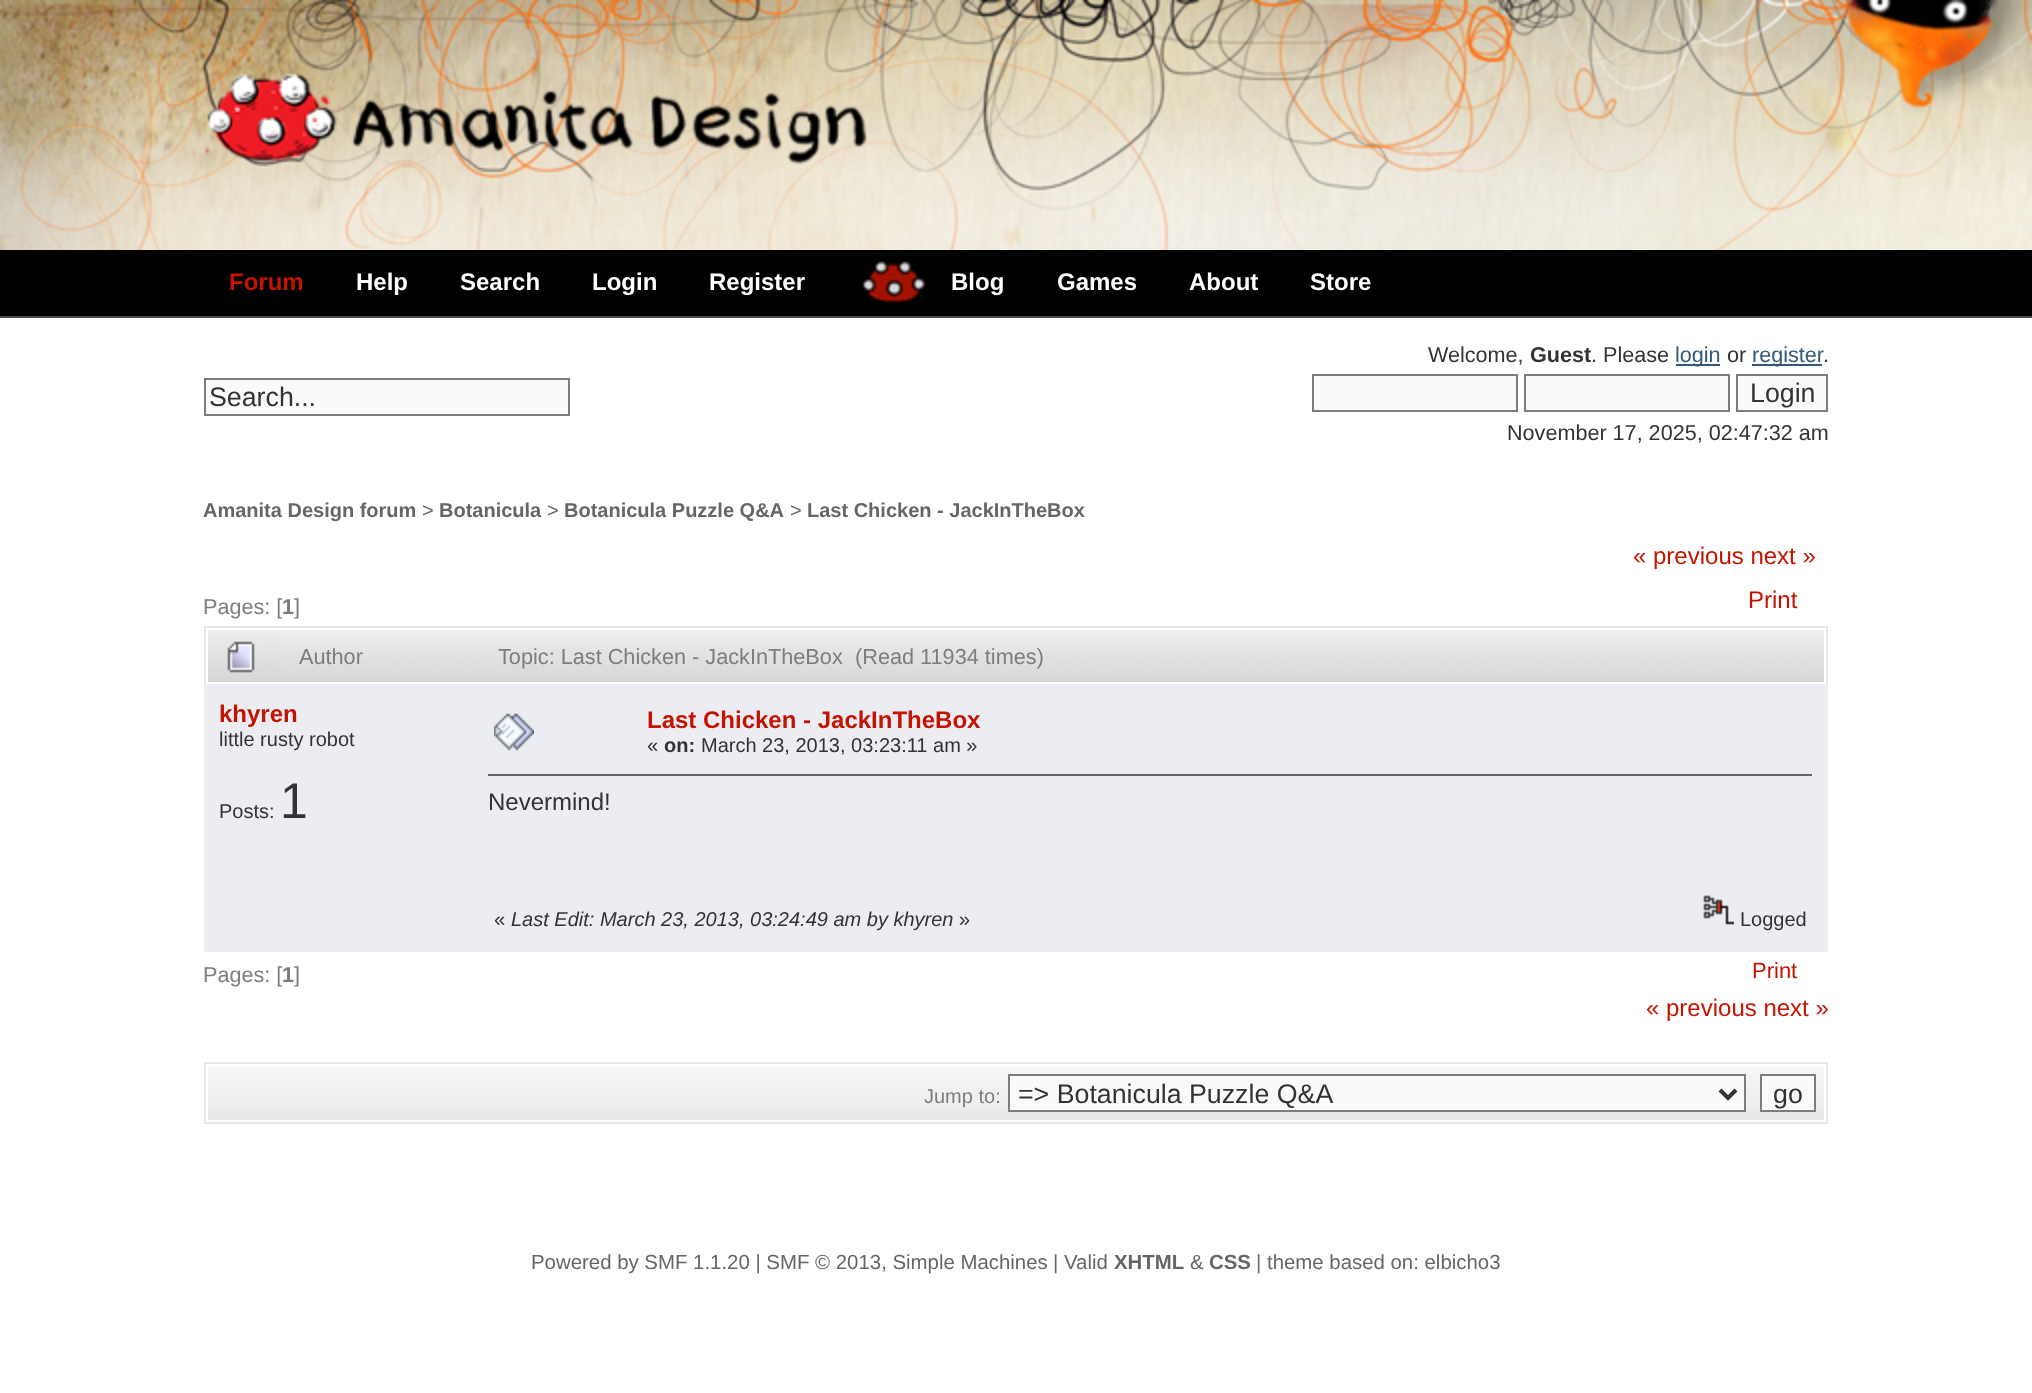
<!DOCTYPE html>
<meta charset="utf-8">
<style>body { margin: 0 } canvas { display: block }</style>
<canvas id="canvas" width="2032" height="1393"></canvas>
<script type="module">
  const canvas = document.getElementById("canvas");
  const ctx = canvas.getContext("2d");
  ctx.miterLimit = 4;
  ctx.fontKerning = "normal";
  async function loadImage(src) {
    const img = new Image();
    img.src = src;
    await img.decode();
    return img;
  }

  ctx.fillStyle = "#ffffff";
  ctx.fillRect(0, 0, 2032, 1393);
  ctx.drawImage(await loadImage("img1.png"), 0, 0, 2032, 250);
  ctx.drawImage(await loadImage("img2.png"), 205, 73, 662, 92);
  ctx.fillStyle = "#000000";
  ctx.fillRect(0, 250, 2032, 66);
  ctx.fillStyle = "#4c4c4c";
  ctx.fillRect(0, 316, 2032, 2);
  ctx.font = "bold 24px Liberation Sans";
  ctx.fillStyle = "#c31401";
  ctx.fillText("Forum", 229, 290);
  ctx.fillStyle = "#ffffff";
  ctx.fillText("Help", 356, 290);
  ctx.fillText("Search", 460, 290);
  ctx.fillText("Login", 592, 290);
  ctx.fillText("Register", 709, 290);
  ctx.drawImage(await loadImage("img3.png"), 862, 261, 64, 42);
  ctx.fillText("Blog", 951, 290);
  ctx.fillText("Games", 1057, 290);
  ctx.fillText("About", 1189, 290);
  ctx.fillText("Store", 1310, 290);
  ctx.fillStyle = "#fafafa";
  ctx.beginPath();
  ctx.rect(205, 379, 364, 36);
  ctx.fill();
  ctx.strokeStyle = "#7d7d7d";
  ctx.lineWidth = 2;
  ctx.stroke();
  ctx.font = "26.75px Liberation Sans";
  ctx.fillStyle = "#333333";
  ctx.fillText("Search...", 209, 406);
  ctx.font = "21.6px Liberation Sans";
  ctx.fillText("Welcome,", 1428, 362);
  ctx.font = "bold 21.6px Liberation Sans";
  ctx.fillText("Guest", 1530, 362);
  ctx.font = "21.6px Liberation Sans";
  ctx.fillText(". Please", 1591, 362);
  ctx.fillStyle = "#33587a";
  ctx.fillRect(1676, 364, 44, 2);
  ctx.fillText("login", 1675, 362);
  ctx.fillStyle = "#333333";
  ctx.fillText("or", 1727, 362);
  ctx.fillStyle = "#33587a";
  ctx.fillRect(1752, 364, 70, 2);
  ctx.fillText("register", 1752, 362);
  ctx.fillStyle = "#333333";
  ctx.fillText(".", 1823, 362);
  ctx.fillStyle = "#fafafa";
  ctx.beginPath();
  ctx.rect(1313, 375, 204, 36);
  ctx.fill();
  ctx.stroke();
  ctx.beginPath();
  ctx.rect(1525, 375, 204, 36);
  ctx.fill();
  ctx.stroke();
  ctx.beginPath();
  ctx.rect(1737, 375, 90, 36);
  ctx.fill();
  ctx.stroke();
  ctx.font = "26.75px Liberation Sans";
  ctx.fillStyle = "#333333";
  ctx.fillText("Login", 1750, 402);
  ctx.font = "21.6px Liberation Sans";
  ctx.fillText("November 17, 2025, 02:47:32 am", 1507, 440);
  ctx.font = "bold 20px Liberation Sans";
  ctx.fillStyle = "#666666";
  ctx.fillText("Amanita Design forum", 203, 517);
  ctx.font = "20px Liberation Sans";
  ctx.fillText(">", 422, 517);
  ctx.font = "bold 20px Liberation Sans";
  ctx.fillText("Botanicula", 439, 517);
  ctx.font = "20px Liberation Sans";
  ctx.fillText(">", 547, 517);
  ctx.font = "bold 20px Liberation Sans";
  ctx.fillText("Botanicula Puzzle Q&A", 564, 517);
  ctx.font = "20px Liberation Sans";
  ctx.fillText(">", 790, 517);
  ctx.font = "bold 20px Liberation Sans";
  ctx.fillText("Last Chicken - JackInTheBox", 807, 517);
  ctx.font = "21.6px Liberation Sans";
  ctx.fillStyle = "#7d7d7d";
  ctx.fillText("Pages: [", 203, 614);
  ctx.font = "bold 21.6px Liberation Sans";
  ctx.fillText("1", 282, 614);
  ctx.font = "21.6px Liberation Sans";
  ctx.fillText("]", 294, 614);
  ctx.font = "24px Liberation Sans";
  ctx.fillStyle = "#c31401";
  ctx.fillText("« previous next »", 1633, 564);
  ctx.fillText("Print", 1748, 608);
  ctx.fillStyle = "#e6e6e6";
  ctx.fillRect(204, 626, 1624, 2);
  ctx.fillRect(1826, 626, 2, 58);
  ctx.fillRect(204, 626, 2, 58);
  ctx.drawImage(await loadImage("img4.png"), 208, 630, 72, 52);
  ctx.drawImage(await loadImage("img5.png"), 227, 641, 28, 32);
  ctx.drawImage(await loadImage("img6.png"), 280, 630, 206, 52);
  ctx.font = "21.7px Liberation Sans";
  ctx.fillStyle = "#7d7d7d";
  ctx.fillText("Author", 299, 664);
  ctx.drawImage(await loadImage("img7.png"), 486, 630, 1338, 52);
  ctx.fillText("Topic: Last Chicken - JackInTheBox", 498, 664);
  ctx.fillText("(Read 11934 times)", 855, 664);
  ctx.fillStyle = "#ecedf3";
  ctx.fillRect(204, 684, 1624, 268);
  ctx.font = "bold 24px Liberation Sans";
  ctx.fillStyle = "#c31401";
  ctx.fillText("khyren", 219, 722);
  ctx.font = "20px Liberation Sans";
  ctx.fillStyle = "#333333";
  ctx.fillText("little rusty robot", 219, 746);
  ctx.fillText("Posts:", 219, 818);
  ctx.font = "50px Liberation Sans";
  ctx.fillText("1", 280, 818);
  ctx.drawImage(await loadImage("img8.png"), 494, 713, 40, 38);
  ctx.font = "bold 24px Liberation Sans";
  ctx.fillStyle = "#c31401";
  ctx.fillText("Last Chicken - JackInTheBox", 647, 728);
  ctx.font = "20px Liberation Sans";
  ctx.fillStyle = "#333333";
  ctx.fillText("«", 647, 752);
  ctx.font = "bold 20px Liberation Sans";
  ctx.fillText("on:", 664, 752);
  ctx.font = "20px Liberation Sans";
  ctx.fillText("March 23, 2013, 03:23:11 am »", 701, 752);
  ctx.fillStyle = "#666666";
  ctx.fillRect(488, 774, 1324, 2);
  ctx.font = "24px Liberation Sans";
  ctx.fillStyle = "#333333";
  ctx.fillText("Nevermind!", 488, 810);
  ctx.font = "20px Liberation Sans";
  ctx.fillText("«", 494, 926);
  ctx.font = "italic 20px Liberation Sans";
  ctx.fillText("Last Edit: March 23, 2013, 03:24:49 am by khyren", 511, 926);
  ctx.font = "20px Liberation Sans";
  ctx.fillText("»", 959, 926);
  ctx.drawImage(await loadImage("img9.png"), 1703, 895, 31, 30);
  ctx.fillText("Logged", 1740, 926);
  ctx.font = "21.6px Liberation Sans";
  ctx.fillStyle = "#7d7d7d";
  ctx.fillText("Pages: [", 203, 982);
  ctx.font = "bold 21.6px Liberation Sans";
  ctx.fillText("1", 282, 982);
  ctx.font = "21.6px Liberation Sans";
  ctx.fillText("]", 294, 982);
  ctx.font = "22px Liberation Sans";
  ctx.fillStyle = "#c31401";
  ctx.fillText("Print", 1752, 978);
  ctx.font = "24px Liberation Sans";
  ctx.fillText("« previous next »", 1646, 1016);
  ctx.strokeStyle = "#e6e6e6";
  ctx.strokeRect(205, 1063, 1622, 60);
  ctx.fillStyle = "#e9e9e9";
  ctx.fillRect(208, 1110, 1616, 10);
  ctx.drawImage(await loadImage("img10.png"), 208, 1066, 1616, 44);
  ctx.font = "20px Liberation Sans";
  ctx.fillStyle = "#7d7d7d";
  ctx.fillText("Jump to:", 924, 1103);
  ctx.fillStyle = "#fafafa";
  ctx.beginPath();
  ctx.rect(1009, 1075, 736, 36);
  ctx.fill();
  ctx.strokeStyle = "#7d7d7d";
  ctx.stroke();
  ctx.beginPath();
  ctx.moveTo(1720, 1090);
  ctx.lineTo(1728, 1098);
  ctx.lineTo(1736, 1090);
  ctx.strokeStyle = "#333333";
  ctx.lineWidth = 4;
  ctx.stroke();
  ctx.font = "26.75px Liberation Sans";
  ctx.fillStyle = "#333333";
  ctx.fillText("=> Botanicula Puzzle Q&A", 1018, 1103);
  ctx.fillStyle = "#fafafa";
  ctx.beginPath();
  ctx.rect(1761, 1075, 54, 36);
  ctx.fill();
  ctx.strokeStyle = "#7d7d7d";
  ctx.lineWidth = 2;
  ctx.stroke();
  ctx.fillStyle = "#333333";
  ctx.fillText("go", 1773, 1103);
  ctx.font = "20.4px Liberation Sans";
  ctx.fillStyle = "#666666";
  ctx.fillText("Powered by SMF 1.1.20 | SMF © 2013, Simple Machines", 531, 1269);
  ctx.fillText("| Valid", 1053, 1269);
  ctx.font = "bold 20.4px Liberation Sans";
  ctx.fillText("XHTML", 1114, 1269);
  ctx.font = "20.4px Liberation Sans";
  ctx.fillText("&", 1190, 1269);
  ctx.font = "bold 20.4px Liberation Sans";
  ctx.fillText("CSS", 1209, 1269);
  ctx.font = "20.4px Liberation Sans";
  ctx.fillText("| theme based on: elbicho3", 1256, 1269);
</script>
